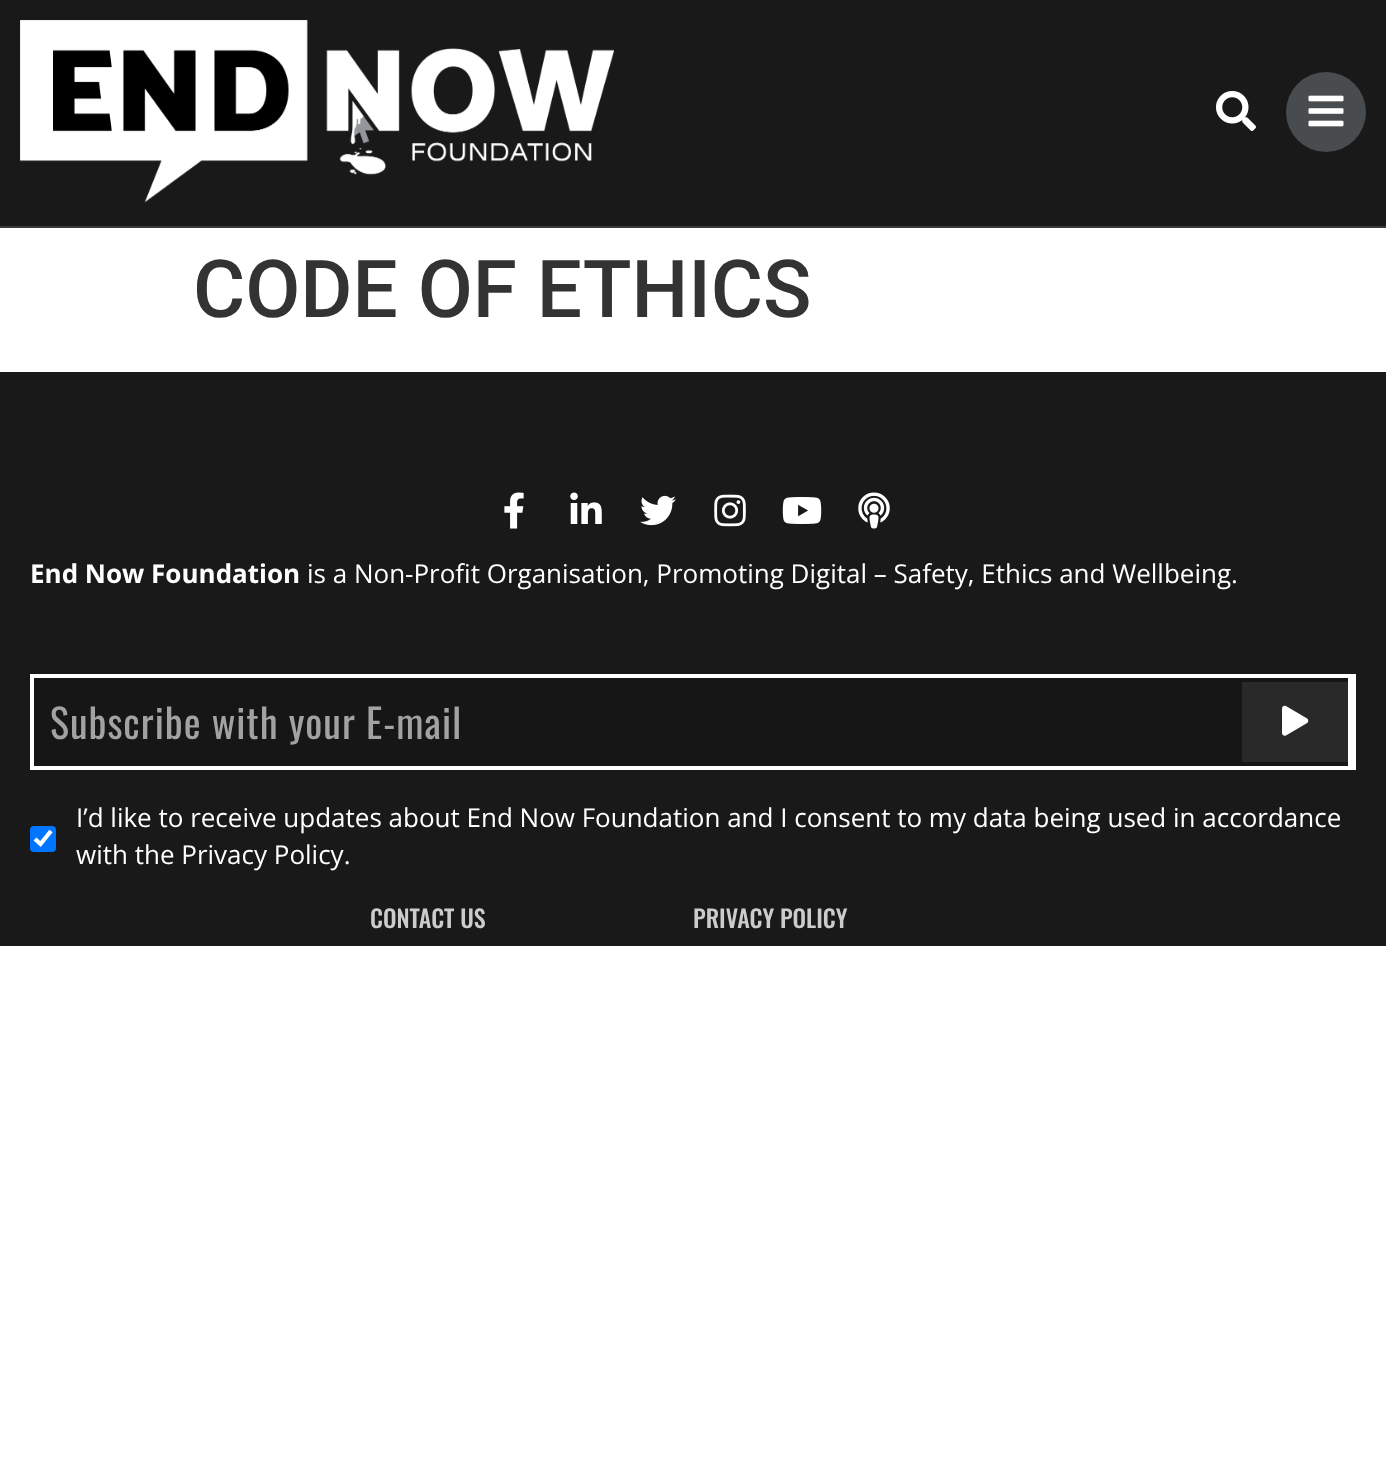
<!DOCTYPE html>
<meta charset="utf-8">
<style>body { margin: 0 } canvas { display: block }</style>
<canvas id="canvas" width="1386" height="1466"></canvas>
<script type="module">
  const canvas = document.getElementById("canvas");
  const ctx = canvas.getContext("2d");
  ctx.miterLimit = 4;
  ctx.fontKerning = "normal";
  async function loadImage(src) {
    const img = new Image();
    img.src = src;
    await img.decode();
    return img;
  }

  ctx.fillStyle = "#ffffff";
  ctx.fillRect(0, 0, 1386, 1466);
  ctx.fillStyle = "#191919";
  ctx.fillRect(0, 0, 1386, 226);
  ctx.fillStyle = "#393939";
  ctx.fillRect(0, 226, 1386, 2);
  ctx.drawImage(await loadImage("img1.png"), 20, 20, 594, 183);
  ctx.drawImage(await loadImage("img2.png"), 1216, 91, 40, 40);
  ctx.fillStyle = "#494c4f";
  ctx.beginPath();
  ctx.arc(1326, 112, 40, 0, Math.PI * 2);
  ctx.fill();
  ctx.drawImage(await loadImage("img3.png"), 1308, 95, 36, 32);
  ctx.font = "500 80px Roboto";
  ctx.fillStyle = "#333333";
  ctx.fillText("CODE OF ETHICS", 193, 317);
  ctx.fillStyle = "#191919";
  ctx.fillRect(0, 372, 1386, 574);
  ctx.drawImage(await loadImage("img4.png"), 504, 492, 20, 37);
  ctx.drawImage(await loadImage("img5.png"), 570, 492, 32, 32);
  ctx.drawImage(await loadImage("img6.png"), 640, 495, 36, 31);
  ctx.drawImage(await loadImage("img7.png"), 714, 494, 32, 33);
  ctx.drawImage(await loadImage("img8.png"), 782, 497, 40, 27);
  ctx.drawImage(await loadImage("img9.png"), 858, 492, 32, 37);
  ctx.font = "bold 26px Open Sans";
  ctx.fillStyle = "#ffffff";
  ctx.fillText("End Now Foundation", 30, 583);
  ctx.font = "26px Open Sans";
  ctx.fillText("is a Non-Profit Organisation, Promoting Digital – Safety, Ethics and Wellbeing.", 307, 583);
  ctx.strokeStyle = "#ffffff";
  ctx.lineWidth = 4;
  ctx.strokeRect(32, 676, 1322, 92);
  ctx.fillStyle = "#161616";
  ctx.fillRect(34, 678, 1314, 88);
  ctx.fillStyle = "#ffffff";
  ctx.fillRect(1348, 678, 4, 88);
  ctx.letterSpacing = "1px";
  ctx.font = "40px Oswald";
  ctx.fillStyle = "#a2a2a2";
  ctx.fillText("Subscribe with your E-mail", 50, 739);
  ctx.fillStyle = "#292929";
  ctx.fillRect(1242, 682, 106, 80);
  ctx.drawImage(await loadImage("img10.png"), 1282, 705, 27, 31);
  ctx.fillStyle = "#0075ff";
  ctx.beginPath();
  ctx.roundRect(30, 826, 26, 26, 4);
  ctx.fill();
  ctx.beginPath();
  ctx.moveTo(35, 839);
  ctx.lineTo(40.5, 844);
  ctx.lineTo(51, 831);
  ctx.lineWidth = 4.2;
  ctx.stroke();
  ctx.letterSpacing = "0px";
  ctx.font = "26px Open Sans";
  ctx.fillStyle = "#ffffff";
  ctx.fillText("I’d like to receive updates about End Now Foundation and I consent to my data being used in accordance", 76, 827);
  ctx.fillText("with the Privacy Policy.", 76, 864);
  ctx.font = "500 24px Oswald";
  ctx.fillStyle = "#cccccc";
  ctx.fillText("CONTACT US", 370, 928);
  ctx.fillText("PRIVACY POLICY", 693, 928);
</script>
